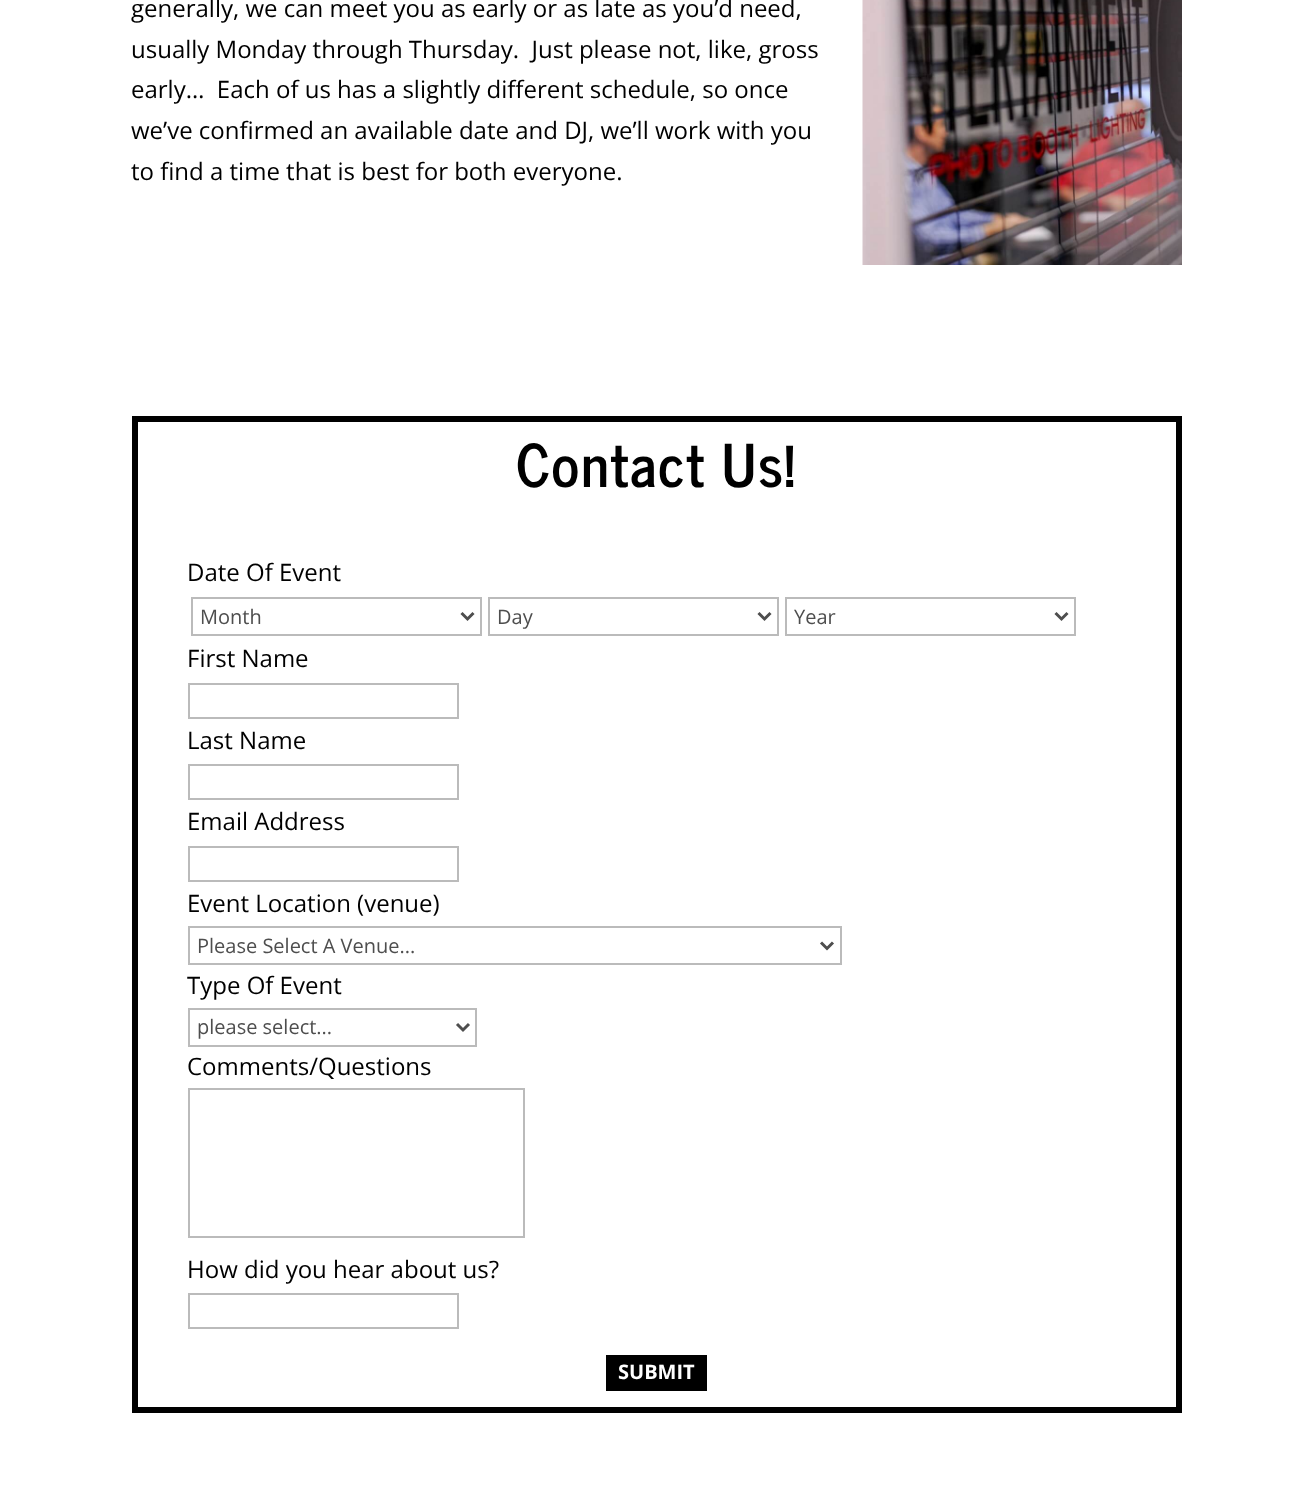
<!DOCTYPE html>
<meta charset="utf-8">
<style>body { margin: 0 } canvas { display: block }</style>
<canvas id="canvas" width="1312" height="1498"></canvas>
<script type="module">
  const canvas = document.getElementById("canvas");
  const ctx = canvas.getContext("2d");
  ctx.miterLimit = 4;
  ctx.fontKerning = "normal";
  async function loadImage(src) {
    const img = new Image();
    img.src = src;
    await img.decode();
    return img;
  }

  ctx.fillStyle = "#ffffff";
  ctx.fillRect(0, 0, 1312, 1498);
  ctx.font = "24px Open Sans";
  ctx.fillStyle = "#000000";
  ctx.fillText("generally, we can meet you as early or as late as you’d need,", 131, 17);
  ctx.drawImage(await loadImage("img1.png"), 862, 0, 320, 265);
  ctx.fillText("usually Monday through Thursday.  Just please not, like, gross", 131, 58);
  ctx.fillText("early…  Each of us has a slightly different schedule, so once", 131, 98);
  ctx.fillText("we’ve confirmed an available date and DJ, we’ll work with you", 131, 139);
  ctx.fillText("to find a time that is best for both everyone.", 131, 180);
  ctx.strokeStyle = "#000000";
  ctx.lineWidth = 6;
  ctx.strokeRect(135, 419, 1044, 991);
  ctx.letterSpacing = "1.5px";
  ctx.font = "bold 58.5px News Cycle";
  ctx.fillText("Contact Us!", 516, 487);
  ctx.letterSpacing = "0px";
  ctx.font = "24px Open Sans";
  ctx.fillText("Date Of Event", 187, 581);
  ctx.strokeStyle = "#bbbbbb";
  ctx.lineWidth = 2;
  ctx.strokeRect(192, 598, 289, 37);
  ctx.beginPath();
  ctx.moveTo(461.5, 613);
  ctx.lineTo(467.5, 619);
  ctx.lineTo(473.5, 613);
  ctx.strokeStyle = "#4e4e4e";
  ctx.lineWidth = 3;
  ctx.stroke();
  ctx.font = "20px Open Sans";
  ctx.fillStyle = "#4e4e4e";
  ctx.fillText("Month", 200, 624);
  ctx.strokeStyle = "#bbbbbb";
  ctx.lineWidth = 2;
  ctx.strokeRect(489, 598, 289, 37);
  ctx.beginPath();
  ctx.moveTo(758.5, 613);
  ctx.lineTo(764.5, 619);
  ctx.lineTo(770.5, 613);
  ctx.strokeStyle = "#4e4e4e";
  ctx.lineWidth = 3;
  ctx.stroke();
  ctx.fillText("Day", 497, 624);
  ctx.strokeStyle = "#bbbbbb";
  ctx.lineWidth = 2;
  ctx.strokeRect(786, 598, 289, 37);
  ctx.beginPath();
  ctx.moveTo(1055.5, 613);
  ctx.lineTo(1061.5, 619);
  ctx.lineTo(1067.5, 613);
  ctx.strokeStyle = "#4e4e4e";
  ctx.lineWidth = 3;
  ctx.stroke();
  ctx.fillText("Year", 794, 624);
  ctx.font = "24px Open Sans";
  ctx.fillStyle = "#000000";
  ctx.fillText("First Name", 187, 667);
  ctx.strokeStyle = "#bbbbbb";
  ctx.lineWidth = 2;
  ctx.strokeRect(189, 684, 269, 34);
  ctx.fillText("Last Name", 187, 749);
  ctx.strokeRect(189, 765, 269, 34);
  ctx.fillText("Email Address", 187, 830);
  ctx.strokeRect(189, 847, 269, 34);
  ctx.fillText("Event Location (venue)", 187, 912);
  ctx.strokeRect(189, 927, 652, 37);
  ctx.beginPath();
  ctx.moveTo(821, 942.5);
  ctx.lineTo(827, 948.5);
  ctx.lineTo(833, 942.5);
  ctx.strokeStyle = "#4e4e4e";
  ctx.lineWidth = 3;
  ctx.stroke();
  ctx.font = "20px Open Sans";
  ctx.fillStyle = "#4e4e4e";
  ctx.fillText("Please Select A Venue...", 197, 953);
  ctx.font = "24px Open Sans";
  ctx.fillStyle = "#000000";
  ctx.fillText("Type Of Event", 187, 994);
  ctx.strokeStyle = "#bbbbbb";
  ctx.lineWidth = 2;
  ctx.strokeRect(189, 1009, 287, 37);
  ctx.beginPath();
  ctx.moveTo(457, 1024);
  ctx.lineTo(463, 1030);
  ctx.lineTo(469, 1024);
  ctx.strokeStyle = "#4e4e4e";
  ctx.lineWidth = 3;
  ctx.stroke();
  ctx.font = "20px Open Sans";
  ctx.fillStyle = "#4e4e4e";
  ctx.fillText("please select...", 197, 1034);
  ctx.font = "24px Open Sans";
  ctx.fillStyle = "#000000";
  ctx.fillText("Comments/Questions", 187, 1075);
  ctx.strokeStyle = "#bbbbbb";
  ctx.lineWidth = 2;
  ctx.strokeRect(189, 1089, 335, 148);
  ctx.fillText("How did you hear about us?", 187, 1278);
  ctx.strokeRect(189, 1294, 269, 34);
  ctx.fillRect(606, 1355, 101, 36);
  ctx.font = "bold 20px Open Sans";
  ctx.fillStyle = "#ffffff";
  ctx.fillText("SUBMIT", 618, 1379);
</script>
